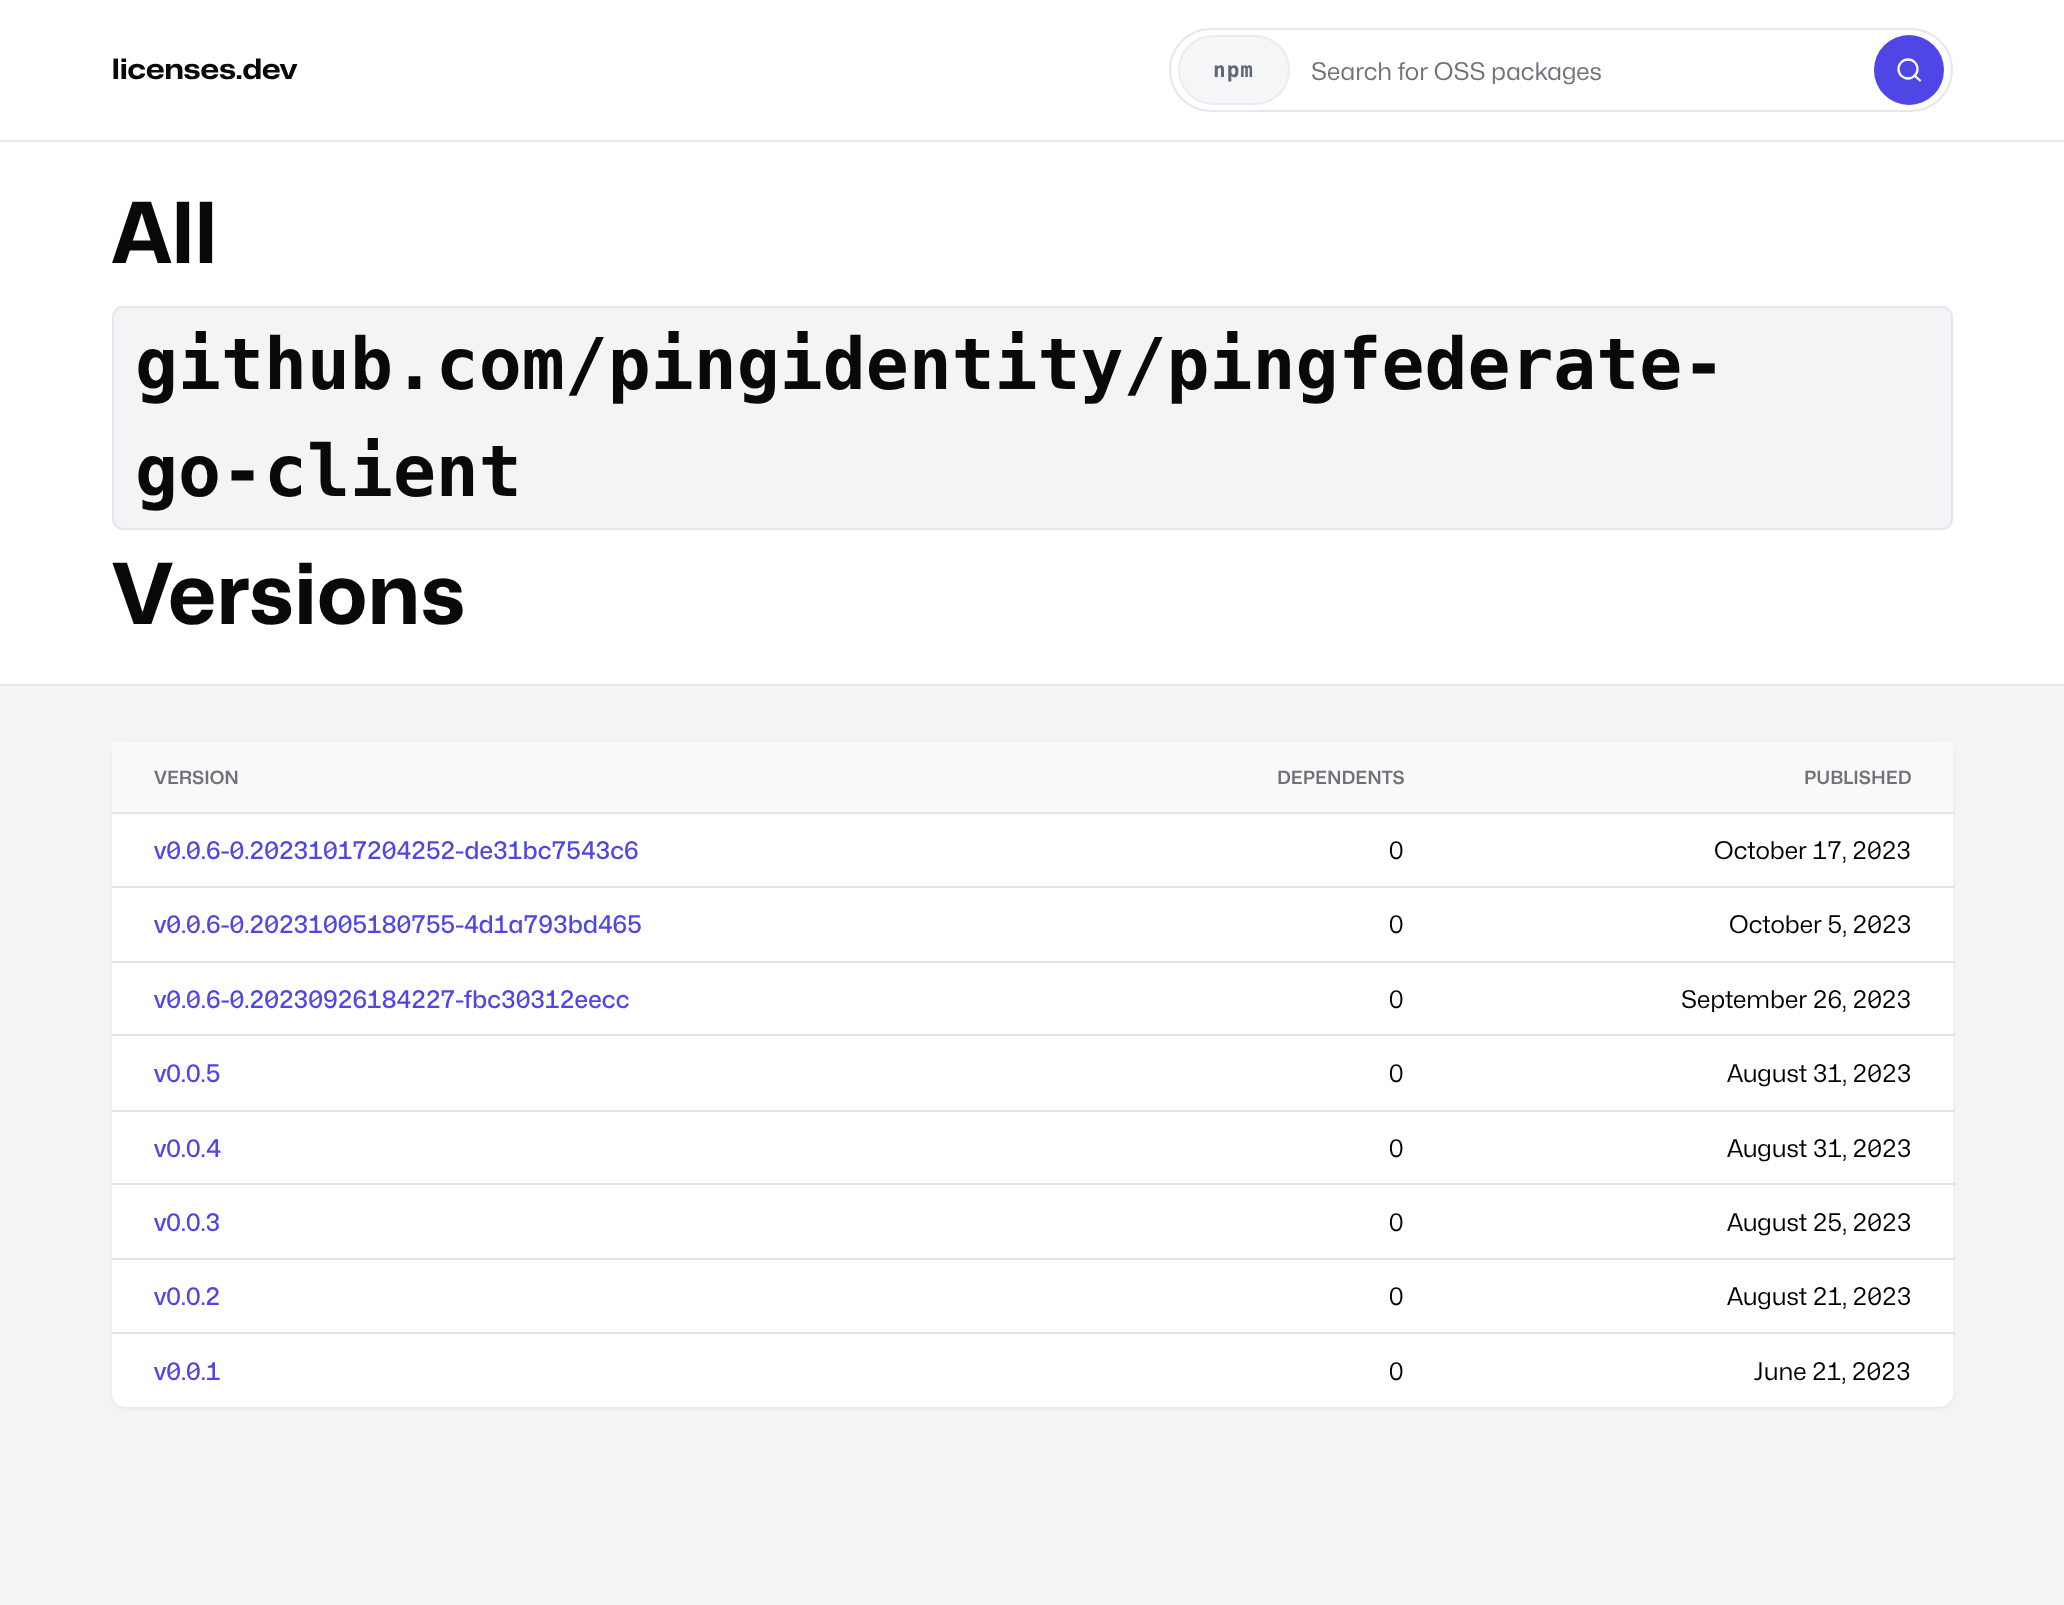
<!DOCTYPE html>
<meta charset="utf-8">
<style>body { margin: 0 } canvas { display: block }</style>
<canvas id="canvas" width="2064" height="1605"></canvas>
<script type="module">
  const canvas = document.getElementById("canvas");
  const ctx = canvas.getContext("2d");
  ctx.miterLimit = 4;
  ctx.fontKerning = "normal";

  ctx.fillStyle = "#f3f4f6";
  ctx.fillRect(0, 0, 2064, 1605);
  ctx.fillStyle = "#ffffff";
  ctx.fillRect(0, 0, 2064, 140);
  ctx.fillStyle = "#e5e7eb";
  ctx.fillRect(0, 140, 2064, 2);
  ctx.font = "bold 28px 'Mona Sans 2'";
  ctx.fillStyle = "#09090b";
  ctx.fillText("licenses.dev", 112, 79);
  ctx.beginPath();
  ctx.roundRect(1170, 29, 782, 82, 41);
  ctx.strokeStyle = "#e5e7eb";
  ctx.lineWidth = 2;
  ctx.stroke();
  ctx.fillStyle = "#f5f6f8";
  ctx.beginPath();
  ctx.roundRect(1179, 36, 110, 68, 34);
  ctx.fill();
  ctx.strokeStyle = "#eaecef";
  ctx.stroke();
  ctx.letterSpacing = "1px";
  ctx.font = "bold 21px DejaVu Sans Mono";
  ctx.fillStyle = "#5f6774";
  ctx.fillText("npm", 1213, 77);
  ctx.letterSpacing = "0px";
  ctx.font = "24.5px Mona Sans";
  ctx.fillStyle = "#71717a";
  ctx.fillText("Search for OSS packages", 1311, 80);
  ctx.fillStyle = "#4f46e5";
  ctx.beginPath();
  ctx.arc(1909, 70, 35, 0, Math.PI * 2);
  ctx.fill();
  ctx.beginPath();
  ctx.arc(1908, 69, 9.5, 0, Math.PI * 2);
  ctx.strokeStyle = "#fafafa";
  ctx.lineWidth = 2.3;
  ctx.stroke();
  ctx.beginPath();
  ctx.moveTo(1920, 80.5);
  ctx.lineTo(1914.5, 75.5);
  ctx.lineCap = "round";
  ctx.lineJoin = "round";
  ctx.stroke();
  ctx.fillStyle = "#ffffff";
  ctx.fillRect(0, 142, 2064, 542);
  ctx.fillStyle = "#e5e7eb";
  ctx.fillRect(0, 684, 2064, 2);
  ctx.font = "bold 84px Mona Sans";
  ctx.fillStyle = "#09090b";
  ctx.fillText("All", 112, 263);
  ctx.fillStyle = "#f3f4f6";
  ctx.beginPath();
  ctx.roundRect(113, 307, 1839, 222, 10);
  ctx.fill();
  ctx.strokeStyle = "#e5e7eb";
  ctx.lineWidth = 2;
  ctx.lineJoin = "miter";
  ctx.stroke();
  ctx.font = "bold 71.4px DejaVu Sans Mono";
  ctx.fillStyle = "#09090b";
  ctx.fillText("github.com/pingidentity/pingfederate-", 135, 389);
  ctx.fillText("go-client", 135, 496);
  ctx.font = "bold 84px Mona Sans";
  ctx.fillText("Versions", 112, 624);
  ctx.fillStyle = "rgba(0, 0, 0, 0.05)";
  ctx.filter = "blur(2px)";
  ctx.beginPath();
  ctx.roundRect(112, 744, 1841, 665, 14);
  ctx.fill();
  ctx.filter = "none";
  ctx.fillStyle = "#ffffff";
  ctx.beginPath();
  ctx.roundRect(112, 742, 1841, 665, 14);
  ctx.fill();
  ctx.fillStyle = "#f9f9f9";
  ctx.fillRect(112, 742, 1841, 70);
  ctx.fillStyle = "#e4e4e7";
  ctx.fillRect(112, 812, 1843, 2);
  ctx.font = "600 18.25px Mona Sans";
  ctx.fillStyle = "#71717a";
  ctx.fillText("VERSION", 154, 784);
  ctx.fillText("DEPENDENTS", 1277, 784);
  ctx.fillText("PUBLISHED", 1804, 784);
  ctx.fillStyle = "#e4e4e7";
  ctx.fillRect(112, 886, 1843, 2);
  ctx.font = "500 24.5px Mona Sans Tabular";
  ctx.fillStyle = "#4f46e5";
  ctx.fillText("v0.0.6-0.20231017204252-de31bc7543c6", 154, 859);
  ctx.font = "24.5px Mona Sans";
  ctx.fillStyle = "#000000";
  ctx.fillText("0", 1389, 859);
  ctx.font = "24.5px Mona Sans Tabular";
  ctx.fillText("October 17, 2023", 1714, 859);
  ctx.fillStyle = "#e4e4e7";
  ctx.fillRect(112, 961, 1843, 2);
  ctx.font = "500 24.5px Mona Sans Tabular";
  ctx.fillStyle = "#4f46e5";
  ctx.fillText("v0.0.6-0.20231005180755-4d1a793bd465", 154, 933);
  ctx.font = "24.5px Mona Sans";
  ctx.fillStyle = "#000000";
  ctx.fillText("0", 1389, 933);
  ctx.font = "24.5px Mona Sans Tabular";
  ctx.fillText("October 5, 2023", 1729, 933);
  ctx.fillStyle = "#e4e4e7";
  ctx.fillRect(112, 1034, 1843, 2);
  ctx.font = "500 24.5px Mona Sans Tabular";
  ctx.fillStyle = "#4f46e5";
  ctx.fillText("v0.0.6-0.20230926184227-fbc30312eecc", 154, 1008);
  ctx.font = "24.5px Mona Sans";
  ctx.fillStyle = "#000000";
  ctx.fillText("0", 1389, 1008);
  ctx.font = "24.5px Mona Sans Tabular";
  ctx.fillText("September 26, 2023", 1681, 1008);
  ctx.fillStyle = "#e4e4e7";
  ctx.fillRect(112, 1110, 1843, 2);
  ctx.font = "500 24.5px Mona Sans";
  ctx.fillStyle = "#4f46e5";
  ctx.fillText("v0.0.5", 154, 1082);
  ctx.font = "24.5px Mona Sans";
  ctx.fillStyle = "#000000";
  ctx.fillText("0", 1389, 1082);
  ctx.font = "24.5px Mona Sans Tabular";
  ctx.fillText("August 31, 2023", 1727, 1082);
  ctx.fillStyle = "#e4e4e7";
  ctx.fillRect(112, 1183, 1843, 2);
  ctx.font = "500 24.5px Mona Sans";
  ctx.fillStyle = "#4f46e5";
  ctx.fillText("v0.0.4", 154, 1157);
  ctx.font = "24.5px Mona Sans";
  ctx.fillStyle = "#000000";
  ctx.fillText("0", 1389, 1157);
  ctx.font = "24.5px Mona Sans Tabular";
  ctx.fillText("August 31, 2023", 1727, 1157);
  ctx.fillStyle = "#e4e4e7";
  ctx.fillRect(112, 1258, 1843, 2);
  ctx.font = "500 24.5px Mona Sans";
  ctx.fillStyle = "#4f46e5";
  ctx.fillText("v0.0.3", 154, 1231);
  ctx.font = "24.5px Mona Sans";
  ctx.fillStyle = "#000000";
  ctx.fillText("0", 1389, 1231);
  ctx.font = "24.5px Mona Sans Tabular";
  ctx.fillText("August 25, 2023", 1727, 1231);
  ctx.fillStyle = "#e4e4e7";
  ctx.fillRect(112, 1332, 1843, 2);
  ctx.font = "500 24.5px Mona Sans";
  ctx.fillStyle = "#4f46e5";
  ctx.fillText("v0.0.2", 154, 1305);
  ctx.font = "24.5px Mona Sans";
  ctx.fillStyle = "#000000";
  ctx.fillText("0", 1389, 1305);
  ctx.font = "24.5px Mona Sans Tabular";
  ctx.fillText("August 21, 2023", 1727, 1305);
  ctx.font = "500 24.5px Mona Sans Tabular";
  ctx.fillStyle = "#4f46e5";
  ctx.fillText("v0.0.1", 154, 1380);
  ctx.font = "24.5px Mona Sans";
  ctx.fillStyle = "#000000";
  ctx.fillText("0", 1389, 1380);
  ctx.font = "24.5px Mona Sans Tabular";
  ctx.fillText("June 21, 2023", 1754, 1380);
</script>
